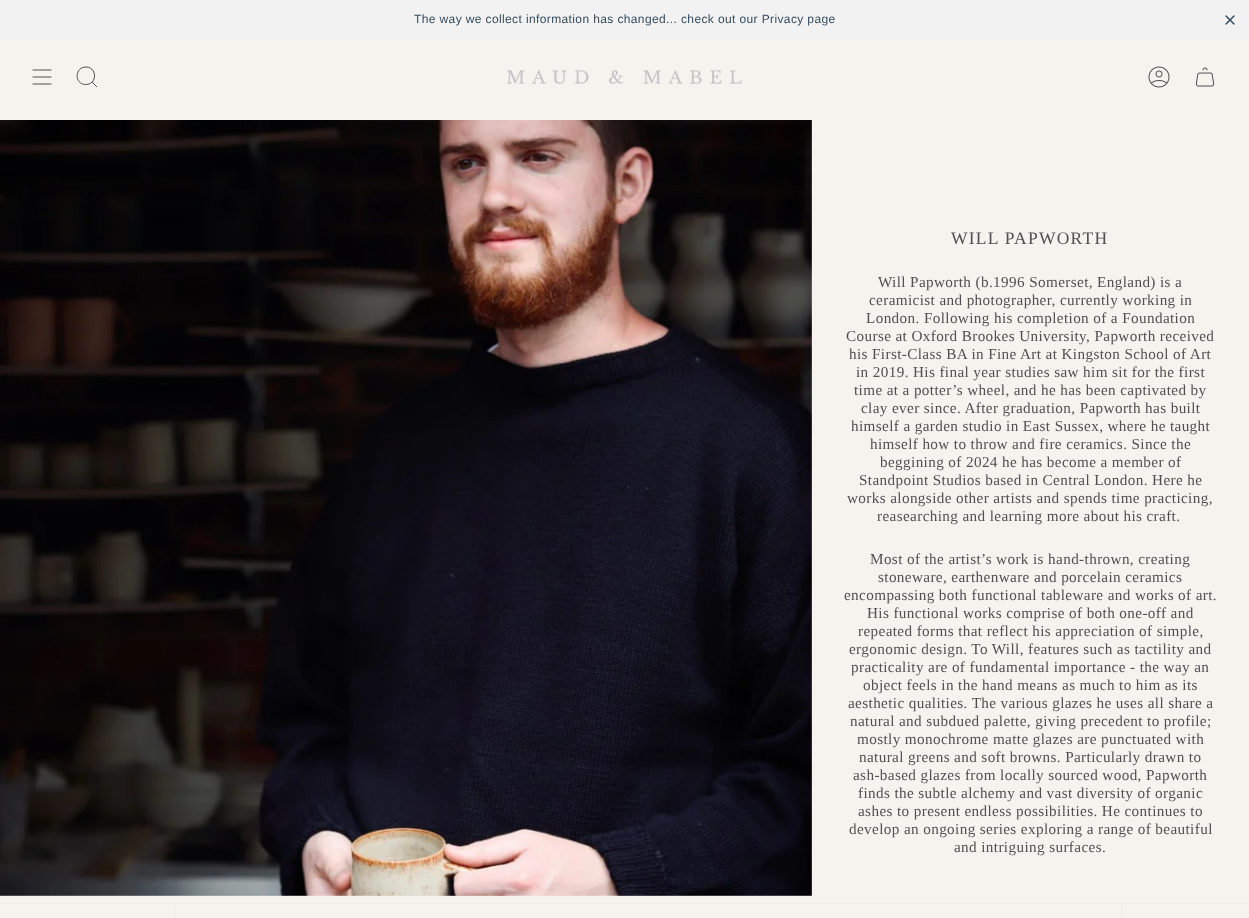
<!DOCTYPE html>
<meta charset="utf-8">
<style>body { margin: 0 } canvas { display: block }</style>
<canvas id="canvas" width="1249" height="918"></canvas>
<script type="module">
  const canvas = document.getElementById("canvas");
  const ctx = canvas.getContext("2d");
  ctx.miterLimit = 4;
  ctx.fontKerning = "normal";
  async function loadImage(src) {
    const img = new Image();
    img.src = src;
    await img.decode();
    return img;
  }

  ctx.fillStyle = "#f5f3ee";
  ctx.fillRect(0, 0, 1249, 918);
  ctx.fillStyle = "#f2f2f2";
  ctx.fillRect(0, 0, 1249, 39);
  ctx.letterSpacing = "0.38px";
  ctx.font = "12px Liberation Sans";
  ctx.fillStyle = "#354b5e";
  ctx.fillText("The way we collect information has changed... check out our Privacy page", 414, 23);
  ctx.drawImage(await loadImage("img1.png"), 1225, 15, 10, 10);
  ctx.beginPath();
  ctx.moveTo(33, 70);
  ctx.lineTo(51, 70);
  ctx.moveTo(33, 77);
  ctx.lineTo(51, 77);
  ctx.moveTo(33, 84);
  ctx.lineTo(51, 84);
  ctx.strokeStyle = "#505050";
  ctx.lineCap = "round";
  ctx.lineJoin = "round";
  ctx.stroke();
  ctx.beginPath();
  ctx.moveTo(86, 67);
  ctx.bezierCurveTo(97.5, 67, 97.5, 85, 85.5, 84.5);
  ctx.bezierCurveTo(74, 84, 74.5, 67, 86, 67);
  ctx.closePath();
  ctx.moveTo(92, 82);
  ctx.lineTo(97, 87);
  ctx.lineCap = "butt";
  ctx.lineJoin = "miter";
  ctx.stroke();
  ctx.drawImage(await loadImage("img2.png"), 507, 70, 235, 14);
  ctx.drawImage(await loadImage("img3.png"), 1148, 66, 22, 22);
  ctx.drawImage(await loadImage("img4.png"), 1195, 67, 20, 20);
  ctx.drawImage(await loadImage("img5.png"), 0, 120, 812, 776);
  ctx.letterSpacing = "1.25px";
  ctx.font = "17.5px Liberation Serif";
  ctx.fillStyle = "#505050";
  ctx.fillText("WILL PAPWORTH", 951, 244);
  ctx.letterSpacing = "0.38px";
  ctx.font = "15.2px Liberation Serif";
  ctx.fillText("Will Papworth (b.1996 Somerset, England) is a", 878, 287);
  ctx.fillText("ceramicist and photographer, currently working in", 869, 305);
  ctx.fillText("London. Following his completion of a Foundation", 866, 323);
  ctx.fillText("Course at Oxford Brookes University, Papworth received", 846, 341);
  ctx.fillText("his First-Class BA in Fine Art at Kingston School of Art", 849, 359);
  ctx.fillText("in 2019. His final year studies saw him sit for the first", 856, 377);
  ctx.fillText("time at a potter’s wheel, and he has been captivated by", 854, 395);
  ctx.fillText("clay ever since. After graduation, Papworth has built", 861, 413);
  ctx.fillText("himself a garden studio in East Sussex, where he taught", 851, 431);
  ctx.fillText("himself how to throw and fire ceramics. Since the", 870, 449);
  ctx.fillText("beggining of 2024 he has become a member of", 880, 467);
  ctx.fillText("Standpoint Studios based in Central London. Here he", 859, 485);
  ctx.fillText("works alongside other artists and spends time practicing,", 847, 503);
  ctx.fillText("reasearching and learning more about his craft.", 877, 521);
  ctx.fillText("Most of the artist’s work is hand-thrown, creating", 870, 564);
  ctx.fillText("stoneware, earthenware and porcelain ceramics", 878, 582);
  ctx.fillText("encompassing both functional tableware and works of art.", 844, 600);
  ctx.fillText("His functional works comprise of both one-off and", 867, 618);
  ctx.fillText("repeated forms that reflect his appreciation of simple,", 858, 636);
  ctx.fillText("ergonomic design. To Will, features such as tactility and", 849, 654);
  ctx.fillText("practicality are of fundamental importance - the way an", 851, 672);
  ctx.fillText("object feels in the hand means as much to him as its", 863, 690);
  ctx.fillText("aesthetic qualities. The various glazes he uses all share a", 848, 708);
  ctx.fillText("natural and subdued palette, giving precedent to profile;", 850, 726);
  ctx.fillText("mostly monochrome matte glazes are punctuated with", 857, 744);
  ctx.fillText("natural greens and soft browns. Particularly drawn to", 859, 762);
  ctx.fillText("ash-based glazes from locally sourced wood, Papworth", 853, 780);
  ctx.fillText("finds the subtle alchemy and vast diversity of organic", 858, 798);
  ctx.fillText("ashes to present endless possibilities. He continues to", 858, 816);
  ctx.fillText("develop an ongoing series exploring a range of beautiful", 849, 834);
  ctx.fillText("and intriguing surfaces.", 954, 852);
  ctx.fillStyle = "#efece4";
  ctx.fillRect(0, 903, 1249, 1);
  ctx.fillRect(175, 904, 1, 14);
  ctx.fillRect(1121, 904, 1, 14);
</script>
